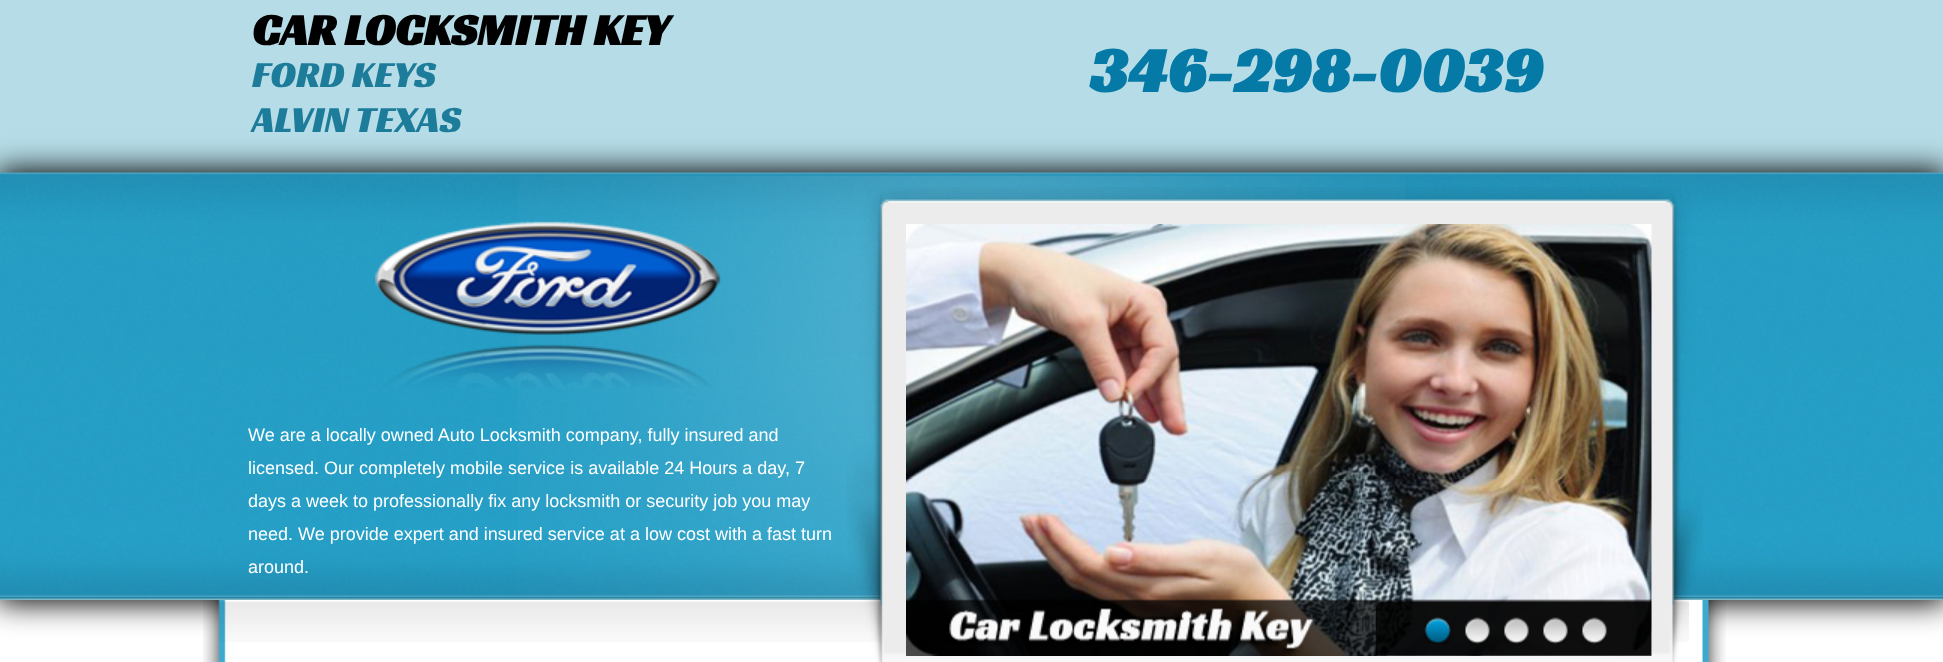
<!DOCTYPE html>
<meta charset="utf-8">
<style>body { margin: 0 } canvas { display: block }</style>
<canvas id="canvas" width="1943" height="662"></canvas>
<script type="module">
  const canvas = document.getElementById("canvas");
  const ctx = canvas.getContext("2d");
  ctx.miterLimit = 4;
  ctx.fontKerning = "normal";
  async function loadImage(src) {
    const img = new Image();
    img.src = src;
    await img.decode();
    return img;
  }

  ctx.fillStyle = "#ffffff";
  ctx.fillRect(0, 0, 1943, 662);
  ctx.fillStyle = "#b6dde7";
  ctx.fillRect(0, 0, 1943, 173);
  ctx.font = "bold 45px Racing Sans One";
  ctx.fillStyle = "#000000";
  ctx.fillText("CAR LOCKSMITH KEY", 252, 45);
  ctx.font = "37.5px Racing Sans One";
  ctx.fillStyle = "#1e7c9b";
  ctx.fillText("FORD KEYS", 252, 87);
  ctx.font = "bold 64.5px Racing Sans One";
  ctx.fillStyle = "#067aa7";
  ctx.fillText("346-298-0039", 1089, 92);
  ctx.fillStyle = "#000000";
  ctx.filter = "blur(15px)";
  ctx.beginPath();
  ctx.rect(-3, 170, 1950, 433);
  ctx.fill();
  ctx.filter = "none";
  ctx.font = "37.5px Racing Sans One";
  ctx.fillStyle = "#1e7c9b";
  ctx.fillText("ALVIN TEXAS", 252, 132);
  ctx.drawImage(await loadImage("img1.png"), 0, 172, 1943, 428);
  ctx.drawImage(await loadImage("img2.png"), 518, 175, 887, 425);
  ctx.drawImage(await loadImage("img3.png"), 374, 221, 347, 167);
  ctx.font = "18px Liberation Sans";
  ctx.fillStyle = "#ffffff";
  ctx.fillText("We are a locally owned Auto Locksmith company, fully insured and", 248, 441);
  ctx.fillText("licensed. Our completely mobile service is available 24 Hours a day, 7", 248, 474);
  ctx.fillText("days a week to professionally fix any locksmith or security job you may", 248, 507);
  ctx.fillText("need. We provide expert and insured service at a low cost with a fast turn", 248, 540);
  ctx.fillText("around.", 248, 573);
  ctx.drawImage(await loadImage("img12.png"), 203, 600, 1523, 62);
  ctx.drawImage(await loadImage("img13.png"), 219, 601, 1470, 41);
  ctx.drawImage(await loadImage("img4.png"), 847, 187, 856, 475);
  ctx.drawImage(await loadImage("img5.png"), 906, 224, 746, 432);
  ctx.drawImage(await loadImage("img6.png"), 1375, 601, 277, 55);
  ctx.drawImage(await loadImage("img7.png"), 1424, 617, 27, 27);
  ctx.drawImage(await loadImage("img8.png"), 1465, 617, 25, 27);
  ctx.drawImage(await loadImage("img9.png"), 1504, 617, 25, 27);
  ctx.drawImage(await loadImage("img10.png"), 1543, 617, 25, 27);
  ctx.drawImage(await loadImage("img11.png"), 1582, 617, 25, 27);
</script>
